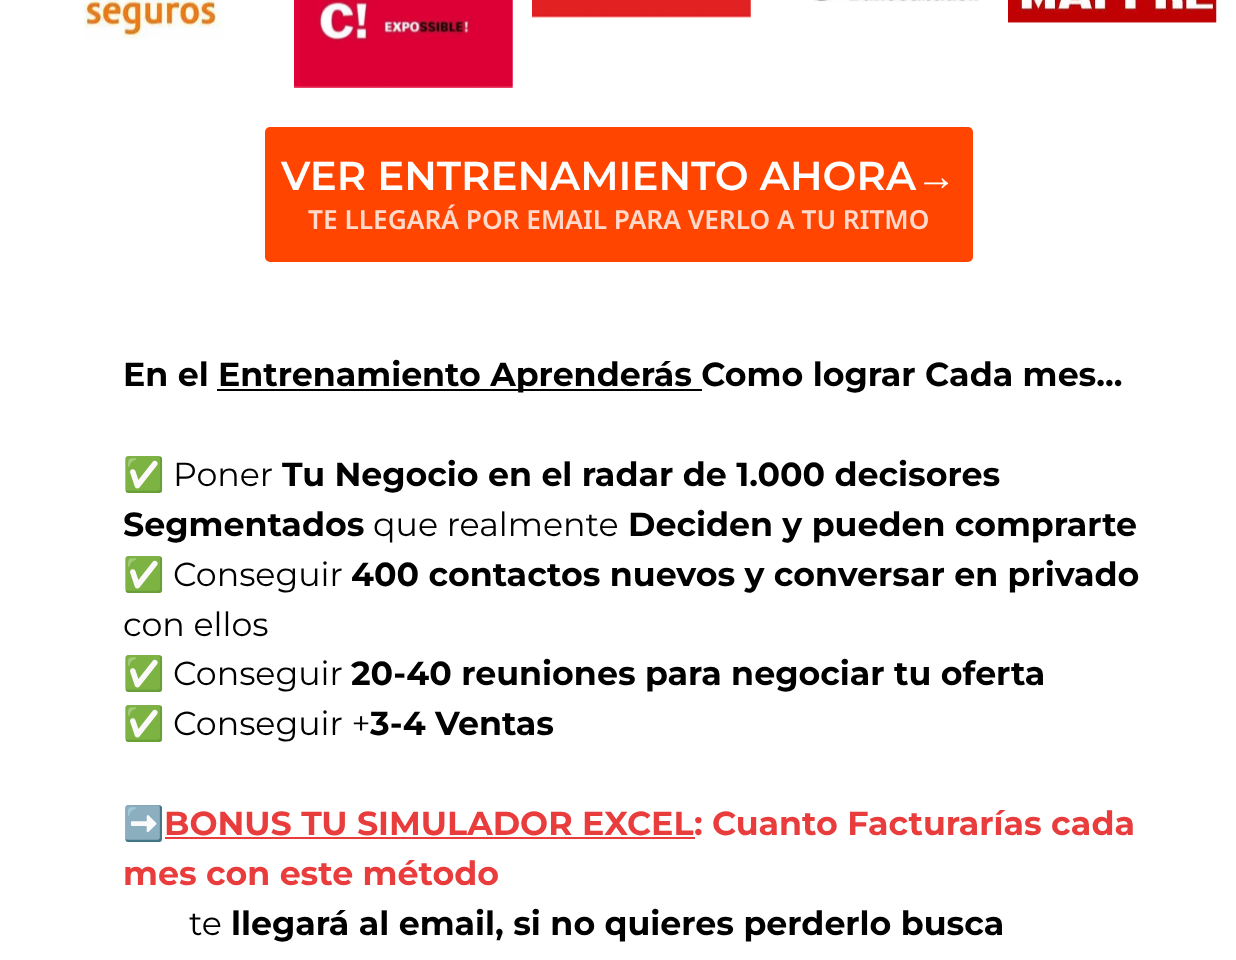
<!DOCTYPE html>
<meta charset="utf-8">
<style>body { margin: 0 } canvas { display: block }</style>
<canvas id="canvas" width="1236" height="960"></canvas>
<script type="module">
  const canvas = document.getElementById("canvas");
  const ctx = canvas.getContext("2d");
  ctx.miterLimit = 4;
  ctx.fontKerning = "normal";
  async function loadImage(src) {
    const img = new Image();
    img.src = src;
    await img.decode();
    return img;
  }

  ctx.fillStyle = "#ffffff";
  ctx.fillRect(0, 0, 1236, 960);
  ctx.drawImage(await loadImage("img1.png"), 83, 0, 140, 39);
  ctx.drawImage(await loadImage("img2.png"), 294, 0, 219, 88);
  ctx.drawImage(await loadImage("img3.png"), 532, 0, 219, 18);
  ctx.drawImage(await loadImage("img4.png"), 813, 0, 167, 2);
  ctx.drawImage(await loadImage("img5.png"), 1008, 0, 209, 23);
  ctx.fillStyle = "#ff4500";
  ctx.beginPath();
  ctx.roundRect(263, 125, 712, 139, 7);
  ctx.fill();
  ctx.strokeStyle = "#ffffff";
  ctx.lineWidth = 4;
  ctx.stroke();
  ctx.font = "600 40.25px Montserrat";
  ctx.fillStyle = "#ffffff";
  ctx.fillText("VER ENTRENAMIENTO AHORA", 281, 190);
  ctx.font = "bold 40.25px Liberation Serif";
  ctx.fillText("→", 916, 190);
  ctx.font = "600 26.25px Noto Sans";
  ctx.fillStyle = "#ffdacc";
  ctx.fillText("TE LLEGARÁ POR EMAIL PARA VERLO A TU RITMO", 308, 229);
  ctx.font = "bold 33.25px Montserrat";
  ctx.fillStyle = "#000000";
  ctx.fillText("En el", 123, 386);
  ctx.fillRect(217, 389, 485, 2);
  ctx.fillText("Entrenamiento Aprenderás Como lograr Cada mes...", 218, 386);
  ctx.font = "33.25px Noto Color Emoji";
  ctx.fillText("✅", 123, 486);
  ctx.font = "33.25px Montserrat";
  ctx.fillText("Poner", 173, 486);
  ctx.font = "bold 33.25px Montserrat";
  ctx.fillText("Tu Negocio en el radar de 1.000 decisores", 282, 486);
  ctx.fillText("Segmentados", 123, 536);
  ctx.font = "33.25px Montserrat";
  ctx.fillText("que realmente", 373, 536);
  ctx.font = "bold 33.25px Montserrat";
  ctx.fillText("Deciden y pueden comprarte", 628, 536);
  ctx.font = "33.25px Noto Color Emoji";
  ctx.fillText("✅", 123, 586);
  ctx.font = "33.25px Montserrat";
  ctx.fillText("Conseguir", 173, 586);
  ctx.font = "bold 33.25px Montserrat";
  ctx.fillText("400 contactos nuevos y conversar en privado", 351, 586);
  ctx.font = "33.25px Montserrat";
  ctx.fillText("con ellos", 123, 636);
  ctx.font = "33.25px Noto Color Emoji";
  ctx.fillText("✅", 123, 685);
  ctx.font = "33.25px Montserrat";
  ctx.fillText("Conseguir", 173, 685);
  ctx.font = "bold 33.25px Montserrat";
  ctx.fillText("20-40 reuniones para negociar tu oferta", 351, 685);
  ctx.font = "33.25px Noto Color Emoji";
  ctx.fillText("✅", 123, 735);
  ctx.font = "33.25px Montserrat";
  ctx.fillText("Conseguir +", 173, 735);
  ctx.font = "bold 33.25px Montserrat";
  ctx.fillText("3-4 Ventas", 370, 735);
  ctx.font = "bold 33.25px Noto Color Emoji";
  ctx.fillStyle = "#e93d3d";
  ctx.fillText("➡️", 123, 835);
  ctx.font = "bold 33.25px Montserrat";
  ctx.fillText("BONUS TU SIMULADOR EXCEL", 164, 835);
  ctx.fillRect(165, 837, 530, 2);
  ctx.fillText(": Cuanto Facturarías cada", 694, 835);
  ctx.fillText("mes con este método", 123, 885);
  ctx.font = "33.25px Montserrat";
  ctx.fillStyle = "#000000";
  ctx.fillText("te", 189, 935);
  ctx.font = "bold 33.25px Montserrat";
  ctx.fillText("llegará al email, si no quieres perderlo busca", 231, 935);
</script>
